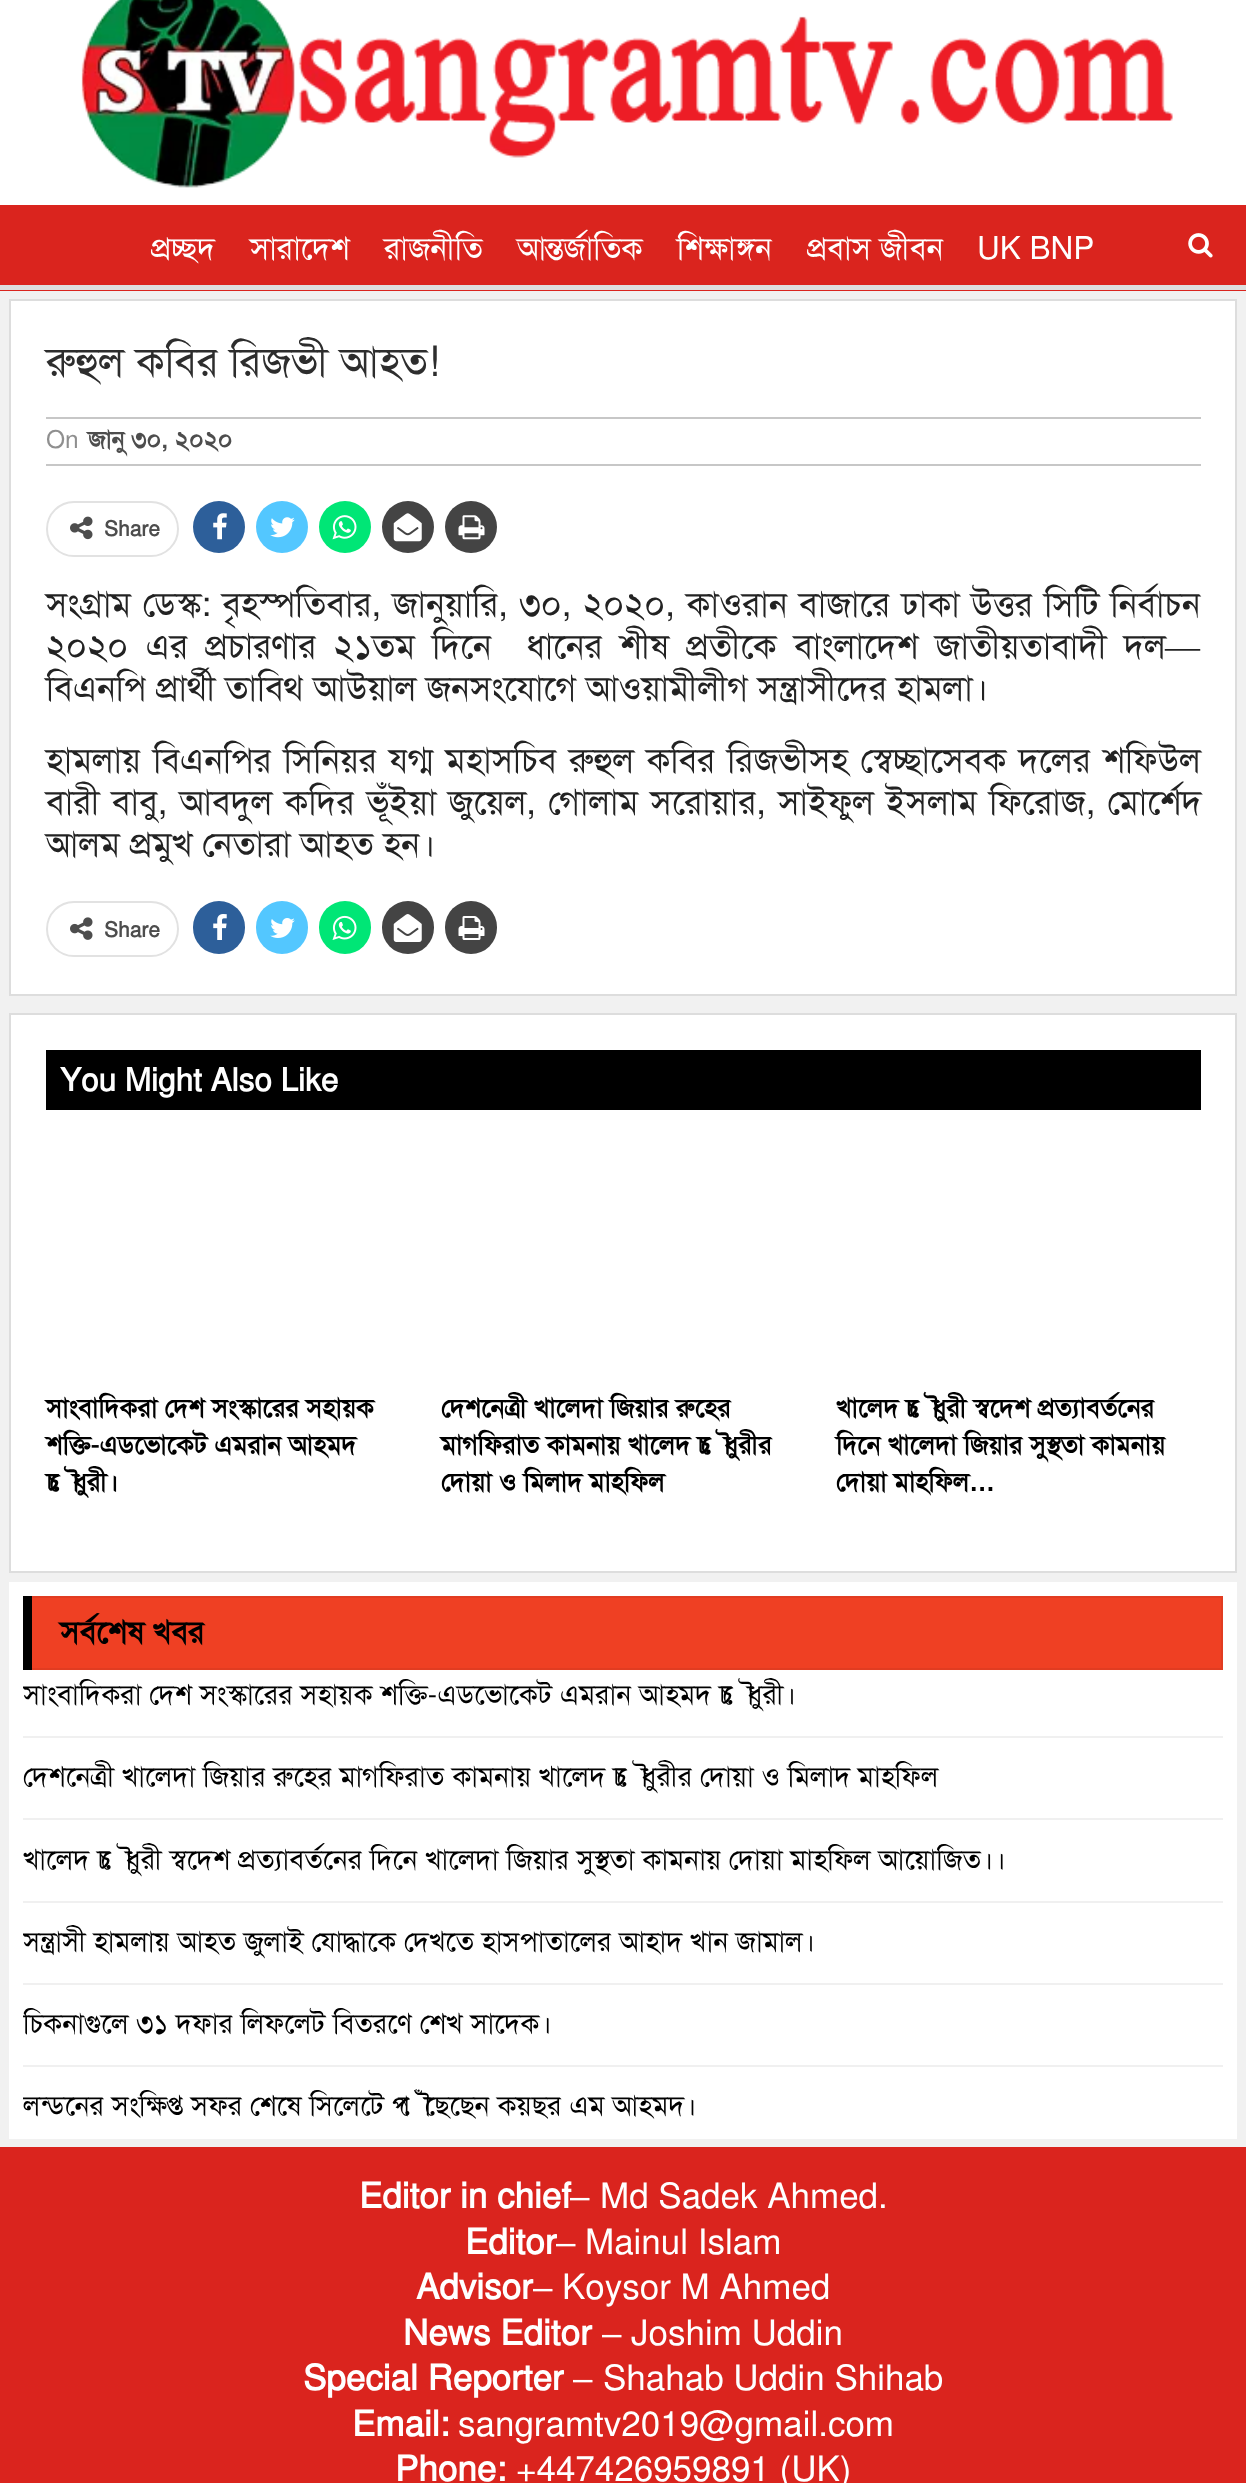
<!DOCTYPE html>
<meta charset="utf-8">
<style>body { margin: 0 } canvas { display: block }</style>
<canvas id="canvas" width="1246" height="2483"></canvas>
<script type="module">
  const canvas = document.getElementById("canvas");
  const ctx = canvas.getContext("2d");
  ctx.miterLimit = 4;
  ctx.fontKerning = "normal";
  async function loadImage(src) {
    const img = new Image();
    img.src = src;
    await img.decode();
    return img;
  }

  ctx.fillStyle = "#f1f1f1";
  ctx.fillRect(0, 0, 1246, 2483);
  ctx.fillStyle = "#ffffff";
  ctx.fillRect(0, 0, 1246, 205);
  ctx.drawImage(await loadImage("img1.png"), 81, 0, 1092, 188);
  ctx.fillStyle = "#da241e";
  ctx.fillRect(0, 205, 1246, 86);
  ctx.fillStyle = "#dedede";
  ctx.fillRect(0, 285, 1246, 5);
  ctx.font = "31.5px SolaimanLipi";
  ctx.fillStyle = "#ffffff";
  ctx.fillText("প্রচ্ছদ", 151, 259);
  ctx.fillText("সারাদেশ", 250, 259);
  ctx.fillText("রাজনীতি", 384, 259);
  ctx.fillText("আন্তর্জাতিক", 517, 259);
  ctx.fillText("শিক্ষাঙ্গন", 677, 259);
  ctx.fillText("প্রবাস জীবন", 807, 259);
  ctx.fillText("UK BNP", 977, 259);
  ctx.drawImage(await loadImage("img2.png"), 1188, 233, 25, 25);
  ctx.beginPath();
  ctx.rect(10, 300, 1226, 695);
  ctx.fill();
  ctx.strokeStyle = "#dddddd";
  ctx.lineWidth = 2;
  ctx.stroke();
  ctx.font = "42px SolaimanLipi";
  ctx.fillStyle = "#2d2d2d";
  ctx.fillText("রুহুল কবির রিজভী আহত!", 46, 376);
  ctx.fillStyle = "#c7c7c7";
  ctx.fillRect(46, 417, 1155, 2);
  ctx.fillRect(46, 464, 1155, 2);
  ctx.font = "24.5px SolaimanLipi";
  ctx.fillStyle = "#8f8f8f";
  ctx.fillText("On", 46, 448);
  ctx.font = "bold 24.5px SolaimanLipi";
  ctx.fillStyle = "#4d4d4d";
  ctx.fillText("জানু ৩০, ২০২০", 88, 448);
  ctx.beginPath();
  ctx.roundRect(47, 502, 131, 54, 27);
  ctx.strokeStyle = "#e2e2e2";
  ctx.stroke();
  ctx.drawImage(await loadImage("img3.png"), 70, 516, 23, 24);
  ctx.font = "bold 21px SolaimanLipi";
  ctx.fillText("Share", 104, 536);
  ctx.fillStyle = "#2d5f9a";
  ctx.beginPath();
  ctx.arc(219, 527, 26, 0, Math.PI * 2);
  ctx.fill();
  ctx.drawImage(await loadImage("img4.png"), 213, 513, 14, 27);
  ctx.fillStyle = "#53c7ff";
  ctx.beginPath();
  ctx.arc(282, 527, 26, 0, Math.PI * 2);
  ctx.fill();
  ctx.drawImage(await loadImage("img5.png"), 270, 517, 25, 21);
  ctx.fillStyle = "#00e676";
  ctx.beginPath();
  ctx.arc(345, 527, 26, 0, Math.PI * 2);
  ctx.fill();
  ctx.drawImage(await loadImage("img6.png"), 332, 515, 25, 25);
  ctx.fillStyle = "#444444";
  ctx.beginPath();
  ctx.arc(408, 527, 26, 0, Math.PI * 2);
  ctx.fill();
  ctx.drawImage(await loadImage("img7.png"), 393, 513, 29, 29);
  ctx.beginPath();
  ctx.arc(471, 527, 26, 0, Math.PI * 2);
  ctx.fill();
  ctx.drawImage(await loadImage("img8.png"), 458, 515, 27, 25);
  ctx.wordSpacing = "1.75px";
  ctx.font = "35px SolaimanLipi";
  ctx.fillStyle = "#222222";
  ctx.fillText("সংগ্রাম ডেস্ক: বৃহস্পতিবার, জানুয়ারি, ৩০, ২০২০, কাওরান বাজারে ঢাকা উত্তর সিটি নির্বাচন", 46, 616);
  ctx.wordSpacing = "7.5px";
  ctx.fillText("২০২০ এর প্রচারণার ২১তম দিনে", 46, 658);
  ctx.fillText("ধানের শীষ প্রতীকে বাংলাদেশ জাতীয়তাবাদী দল", 526, 658);
  ctx.wordSpacing = "0px";
  ctx.font = "35px Liberation Serif";
  ctx.fillText("—", 1165, 658);
  ctx.font = "35px SolaimanLipi";
  ctx.fillText("বিএনপি প্রার্থী তাবিথ আউয়াল জনসংযোগে আওয়ামীলীগ সন্ত্রাসীদের হামলা।", 46, 700);
  ctx.wordSpacing = "2.5px";
  ctx.fillText("হামলায় বিএনপির সিনিয়র যগ্ম মহাসচিব রুহুল কবির রিজভীসহ স্বেচ্ছাসেবক দলের শফিউল", 46, 772);
  ctx.wordSpacing = "2.4px";
  ctx.fillText("বারী বাবু, আবদুল কদির ভূঁইয়া জুয়েল, গোলাম সরোয়ার, সাইফুল ইসলাম ফিরোজ, মোর্শেদ", 46, 814);
  ctx.wordSpacing = "0px";
  ctx.fillText("আলম প্রমুখ নেতারা আহত হন।", 46, 856);
  ctx.beginPath();
  ctx.roundRect(47, 902, 131, 54, 27);
  ctx.stroke();
  ctx.drawImage(await loadImage("img9.png"), 70, 917, 23, 23);
  ctx.font = "bold 21px SolaimanLipi";
  ctx.fillStyle = "#4d4d4d";
  ctx.fillText("Share", 104, 937);
  ctx.fillStyle = "#2d5f9a";
  ctx.beginPath();
  ctx.roundRect(193, 901, 52, 53, 26);
  ctx.fill();
  ctx.drawImage(await loadImage("img10.png"), 213, 914, 14, 26);
  ctx.fillStyle = "#53c7ff";
  ctx.beginPath();
  ctx.roundRect(256, 901, 52, 53, 26);
  ctx.fill();
  ctx.drawImage(await loadImage("img11.png"), 270, 918, 25, 20);
  ctx.fillStyle = "#00e676";
  ctx.beginPath();
  ctx.roundRect(319, 901, 52, 53, 26);
  ctx.fill();
  ctx.drawImage(await loadImage("img12.png"), 332, 915, 25, 25);
  ctx.fillStyle = "#444444";
  ctx.beginPath();
  ctx.roundRect(382, 901, 52, 53, 26);
  ctx.fill();
  ctx.drawImage(await loadImage("img13.png"), 393, 914, 29, 28);
  ctx.beginPath();
  ctx.roundRect(445, 901, 52, 53, 26);
  ctx.fill();
  ctx.drawImage(await loadImage("img14.png"), 458, 916, 27, 24);
  ctx.fillStyle = "#ffffff";
  ctx.beginPath();
  ctx.rect(10, 1014, 1226, 558);
  ctx.fill();
  ctx.strokeStyle = "#dddddd";
  ctx.stroke();
  ctx.fillStyle = "#000000";
  ctx.fillRect(46, 1050, 1155, 60);
  ctx.font = "bold 31.5px SolaimanLipi";
  ctx.fillStyle = "#ffffff";
  ctx.fillText("You Might Also Like", 60, 1091);
  ctx.font = "bold 26.25px SolaimanLipi";
  ctx.fillStyle = "#000000";
  ctx.fillText("সাংবাদিকরা দেশ সংস্কারের সহায়ক", 46, 1417);
  ctx.fillText("শক্তি-এডভোকেট এমরান আহমদ", 46, 1454);
  ctx.fillText("চৌধুরী।", 46, 1491);
  ctx.fillText("দেশনেত্রী খালেদা জিয়ার রুহের", 441, 1417);
  ctx.fillText("মাগফিরাত কামনায় খালেদ চৌধুরীর", 441, 1454);
  ctx.fillText("দোয়া ও মিলাদ মাহফিল", 441, 1491);
  ctx.fillText("খালেদ চৌধুরী স্বদেশ প্রত্যাবর্তনের", 836, 1417);
  ctx.fillText("দিনে খালেদা জিয়ার সুস্থতা কামনায়", 836, 1454);
  ctx.fillText("দোয়া মাহফিল", 836, 1491);
  ctx.font = "bold 26.25px Liberation Sans";
  ctx.fillText("…", 969, 1491);
  ctx.fillStyle = "#ffffff";
  ctx.fillRect(9, 1582, 1228, 557);
  ctx.fillStyle = "#ef4023";
  ctx.fillRect(32, 1598, 1189, 70);
  ctx.strokeStyle = "#e13c21";
  ctx.strokeRect(24, 1597, 1198, 72);
  ctx.fillStyle = "#000000";
  ctx.fillRect(23, 1596, 9, 74);
  ctx.font = "bold 31.5px SolaimanLipi";
  ctx.fillText("সর্বশেষ খবর", 60, 1643);
  ctx.fillStyle = "#f0f0f0";
  ctx.fillRect(23, 1736, 1200, 2);
  ctx.save();
  ctx.beginPath();
  ctx.rect(23, 1678, 1200, 447);
  ctx.clip();
  ctx.font = "28px SolaimanLipi";
  ctx.fillStyle = "#000000";
  ctx.fillText("সাংবাদিকরা দেশ সংস্কারের সহায়ক শক্তি-এডভোকেট এমরান আহমদ চৌধুরী।", 23, 1704);
  ctx.restore();
  ctx.fillRect(23, 1818, 1200, 2);
  ctx.save();
  ctx.beginPath();
  ctx.rect(23, 1678, 1200, 447);
  ctx.clip();
  ctx.font = "28px SolaimanLipi";
  ctx.fillStyle = "#000000";
  ctx.fillText("দেশনেত্রী খালেদা জিয়ার রুহের মাগফিরাত কামনায় খালেদ চৌধুরীর দোয়া ও মিলাদ মাহফিল", 23, 1786);
  ctx.restore();
  ctx.fillRect(23, 1901, 1200, 2);
  ctx.save();
  ctx.beginPath();
  ctx.rect(23, 1678, 1200, 447);
  ctx.clip();
  ctx.font = "28px SolaimanLipi";
  ctx.fillStyle = "#000000";
  ctx.fillText("খালেদ চৌধুরী স্বদেশ প্রত্যাবর্তনের দিনে খালেদা জিয়ার সুস্থতা কামনায় দোয়া মাহফিল আয়োজিত।।", 23, 1869);
  ctx.restore();
  ctx.fillRect(23, 1983, 1200, 2);
  ctx.save();
  ctx.beginPath();
  ctx.rect(23, 1678, 1200, 447);
  ctx.clip();
  ctx.font = "28px SolaimanLipi";
  ctx.fillStyle = "#000000";
  ctx.fillText("সন্ত্রাসী হামলায় আহত জুলাই যোদ্ধাকে দেখতে হাসপাতালের আহাদ খান জামাল।", 23, 1951);
  ctx.restore();
  ctx.fillRect(23, 2065, 1200, 2);
  ctx.save();
  ctx.beginPath();
  ctx.rect(23, 1678, 1200, 447);
  ctx.clip();
  ctx.font = "28px SolaimanLipi";
  ctx.fillStyle = "#000000";
  ctx.fillText("চিকনাগুলে ৩১ দফার লিফলেট বিতরণে শেখ সাদেক।", 23, 2033);
  ctx.fillText("লন্ডনের সংক্ষিপ্ত সফর শেষে সিলেটে পৌঁছেছেন কয়ছর এম আহমদ।", 23, 2115);
  ctx.restore();
  ctx.fillStyle = "#da241e";
  ctx.fillRect(0, 2147, 1246, 336);
  ctx.font = "bold 35px SolaimanLipi";
  ctx.fillStyle = "#ffffff";
  ctx.fillText("Editor in chief", 359, 2208);
  ctx.font = "35px Liberation Sans";
  ctx.fillText("–", 570, 2208);
  ctx.font = "35px SolaimanLipi";
  ctx.fillText("Md Sadek Ahmed.", 600, 2208);
  ctx.font = "bold 35px SolaimanLipi";
  ctx.fillText("Editor", 465, 2254);
  ctx.font = "35px Liberation Sans";
  ctx.fillText("–", 556, 2254);
  ctx.font = "35px SolaimanLipi";
  ctx.fillText("Mainul Islam", 585, 2254);
  ctx.font = "bold 35px SolaimanLipi";
  ctx.fillText("Advisor", 416, 2299);
  ctx.font = "35px Liberation Sans";
  ctx.fillText("–", 533, 2299);
  ctx.font = "35px SolaimanLipi";
  ctx.fillText("Koysor M Ahmed", 562, 2299);
  ctx.font = "bold 35px SolaimanLipi";
  ctx.fillText("News Editor", 403, 2345);
  ctx.font = "35px Liberation Sans";
  ctx.fillText("–", 602, 2345);
  ctx.font = "35px SolaimanLipi";
  ctx.fillText("Joshim Uddin", 631, 2345);
  ctx.font = "bold 35px SolaimanLipi";
  ctx.fillText("Special Reporter", 303, 2390);
  ctx.font = "35px Liberation Sans";
  ctx.fillText("–", 573, 2390);
  ctx.font = "35px SolaimanLipi";
  ctx.fillText("Shahab Uddin Shihab", 603, 2390);
  ctx.font = "bold 35px SolaimanLipi";
  ctx.fillText("Email:", 352, 2436);
  ctx.font = "35px SolaimanLipi";
  ctx.fillText("sangramtv2019@gmail.com", 458, 2436);
  ctx.font = "bold 35px SolaimanLipi";
  ctx.fillText("Phone:", 395, 2481);
  ctx.font = "35px SolaimanLipi";
  ctx.fillText("+447426959891 (UK)", 516, 2481);
</script>
